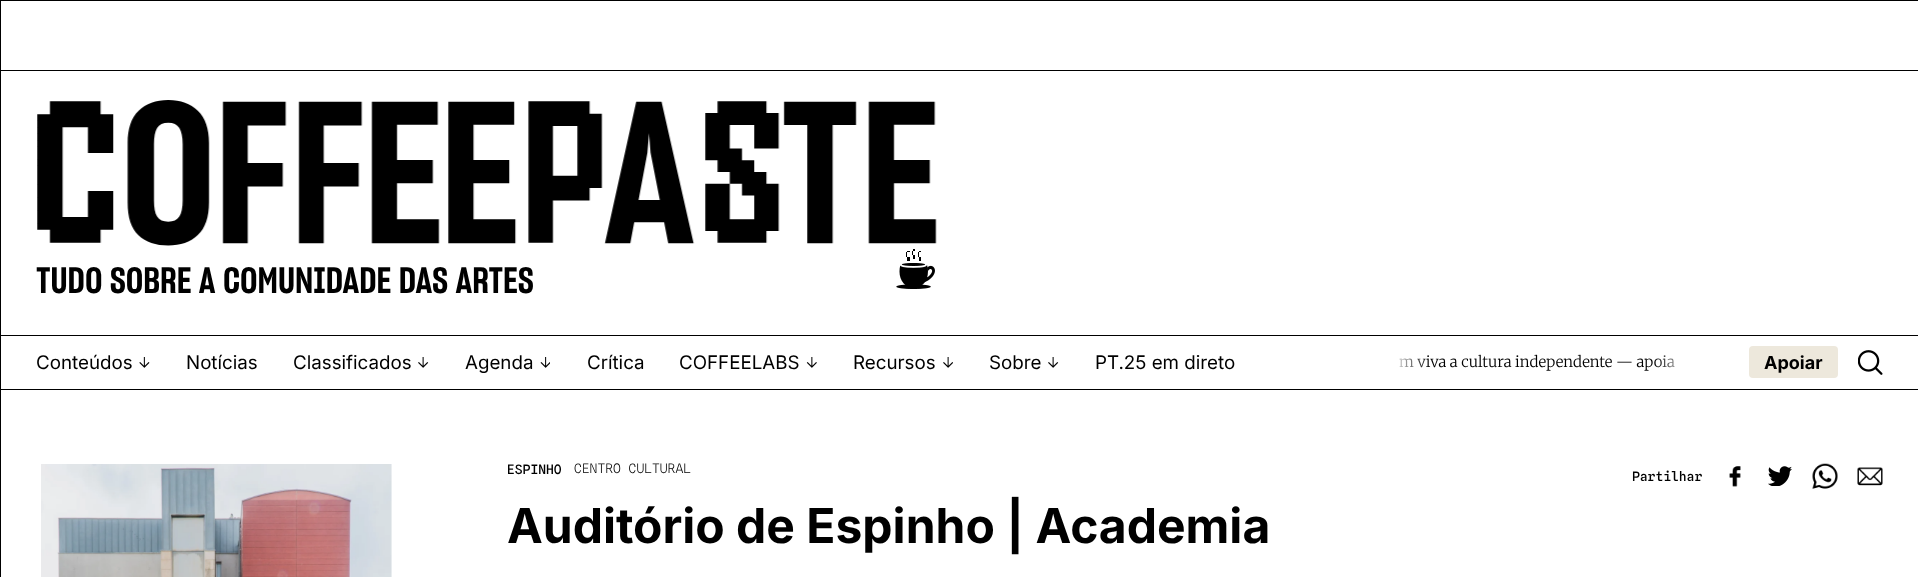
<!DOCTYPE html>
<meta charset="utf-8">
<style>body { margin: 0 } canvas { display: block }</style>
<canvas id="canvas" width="1918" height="577"></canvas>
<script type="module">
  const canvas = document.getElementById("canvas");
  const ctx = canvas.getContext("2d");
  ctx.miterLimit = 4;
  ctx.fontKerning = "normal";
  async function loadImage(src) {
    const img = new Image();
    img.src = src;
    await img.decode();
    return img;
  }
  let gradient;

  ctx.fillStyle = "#ffffff";
  ctx.fillRect(0, 0, 1918, 577);
  ctx.fillStyle = "#000000";
  ctx.fillRect(1, 70, 1917, 1);
  ctx.drawImage(await loadImage("img1.png"), 37, 100, 900, 146);
  ctx.font = "bold 35.9px 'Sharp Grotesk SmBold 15'";
  ctx.fillText("TUDO SOBRE A COMUNIDADE DAS ARTES", 36, 293);
  ctx.drawImage(await loadImage("img2.png"), 896, 249, 39, 40);
  ctx.fillRect(1, 335, 1917, 1);
  ctx.font = "18.75px Inter";
  ctx.fillText("Conteúdos", 36, 369);
  ctx.drawImage(await loadImage("img3.png"), 139, 357, 11, 11);
  ctx.fillText("Notícias", 186, 369);
  ctx.fillText("Classificados", 293, 369);
  ctx.drawImage(await loadImage("img4.png"), 418, 357, 11, 11);
  ctx.fillText("Agenda", 465, 369);
  ctx.drawImage(await loadImage("img5.png"), 540, 357, 10, 11);
  ctx.fillText("Crítica", 587, 369);
  ctx.fillText("COFFEELABS", 679, 369);
  ctx.drawImage(await loadImage("img6.png"), 806, 357, 11, 11);
  ctx.fillText("Recursos", 853, 369);
  ctx.drawImage(await loadImage("img7.png"), 943, 357, 10, 11);
  ctx.fillText("Sobre", 989, 369);
  ctx.drawImage(await loadImage("img4.png"), 1048, 357, 11, 11);
  ctx.fillText("PT.25 em direto", 1095, 369);
  ctx.font = "300 15px Merriweather";
  ctx.fillText("m viva a cultura independente — apoia", 1399, 367);
  gradient = ctx.createLinearGradient(1354, 362, 1429, 362);
  gradient.addColorStop(0, "#ffffff");
  gradient.addColorStop(0.49, "#ffffff");
  gradient.addColorStop(1, "rgba(255, 255, 255, 0)");
  ctx.fillStyle = gradient;
  ctx.fillRect(1399, 355, 29, 13);
  gradient = ctx.createLinearGradient(1729, 362, 1654, 362);
  gradient.addColorStop(0, "#ffffff");
  gradient.addColorStop(0.49, "#ffffff");
  gradient.addColorStop(1, "rgba(255, 255, 255, 0)");
  ctx.fillStyle = gradient;
  ctx.fillRect(1655, 355, 20, 13);
  ctx.fillStyle = "#ede8dc";
  ctx.beginPath();
  ctx.roundRect(1749, 346, 89, 32, 4);
  ctx.fill();
  ctx.font = "bold 18px Inter";
  ctx.fillStyle = "#000000";
  ctx.fillText("Apoiar", 1764, 369);
  ctx.drawImage(await loadImage("img8.png"), 1858, 350, 25, 25);
  ctx.fillRect(1, 389, 1917, 1);
  ctx.fillRect(0, 0, 1918, 1);
  ctx.fillRect(0, 0, 1, 577);
  ctx.drawImage(await loadImage("img9.png"), 41, 464, 351, 113);
  ctx.font = "500 13px Spline Sans Mono";
  ctx.fillText("ESPINHO", 507, 474);
  ctx.font = "300 13px Spline Sans Mono";
  ctx.fillText("CENTRO CULTURAL", 574, 473);
  ctx.font = "bold 48px Inter";
  ctx.fillText("Auditório de Espinho | Academia", 507, 543);
  ctx.font = "500 13px Spline Sans Mono";
  ctx.fillText("Partilhar", 1632, 481);
  ctx.drawImage(await loadImage("img10.png"), 1729, 466, 12, 21);
  ctx.drawImage(await loadImage("img11.png"), 1768, 466, 24, 20);
  ctx.drawImage(await loadImage("img12.png"), 1812, 463, 26, 26);
  ctx.drawImage(await loadImage("img13.png"), 1857, 467, 26, 19);
</script>
